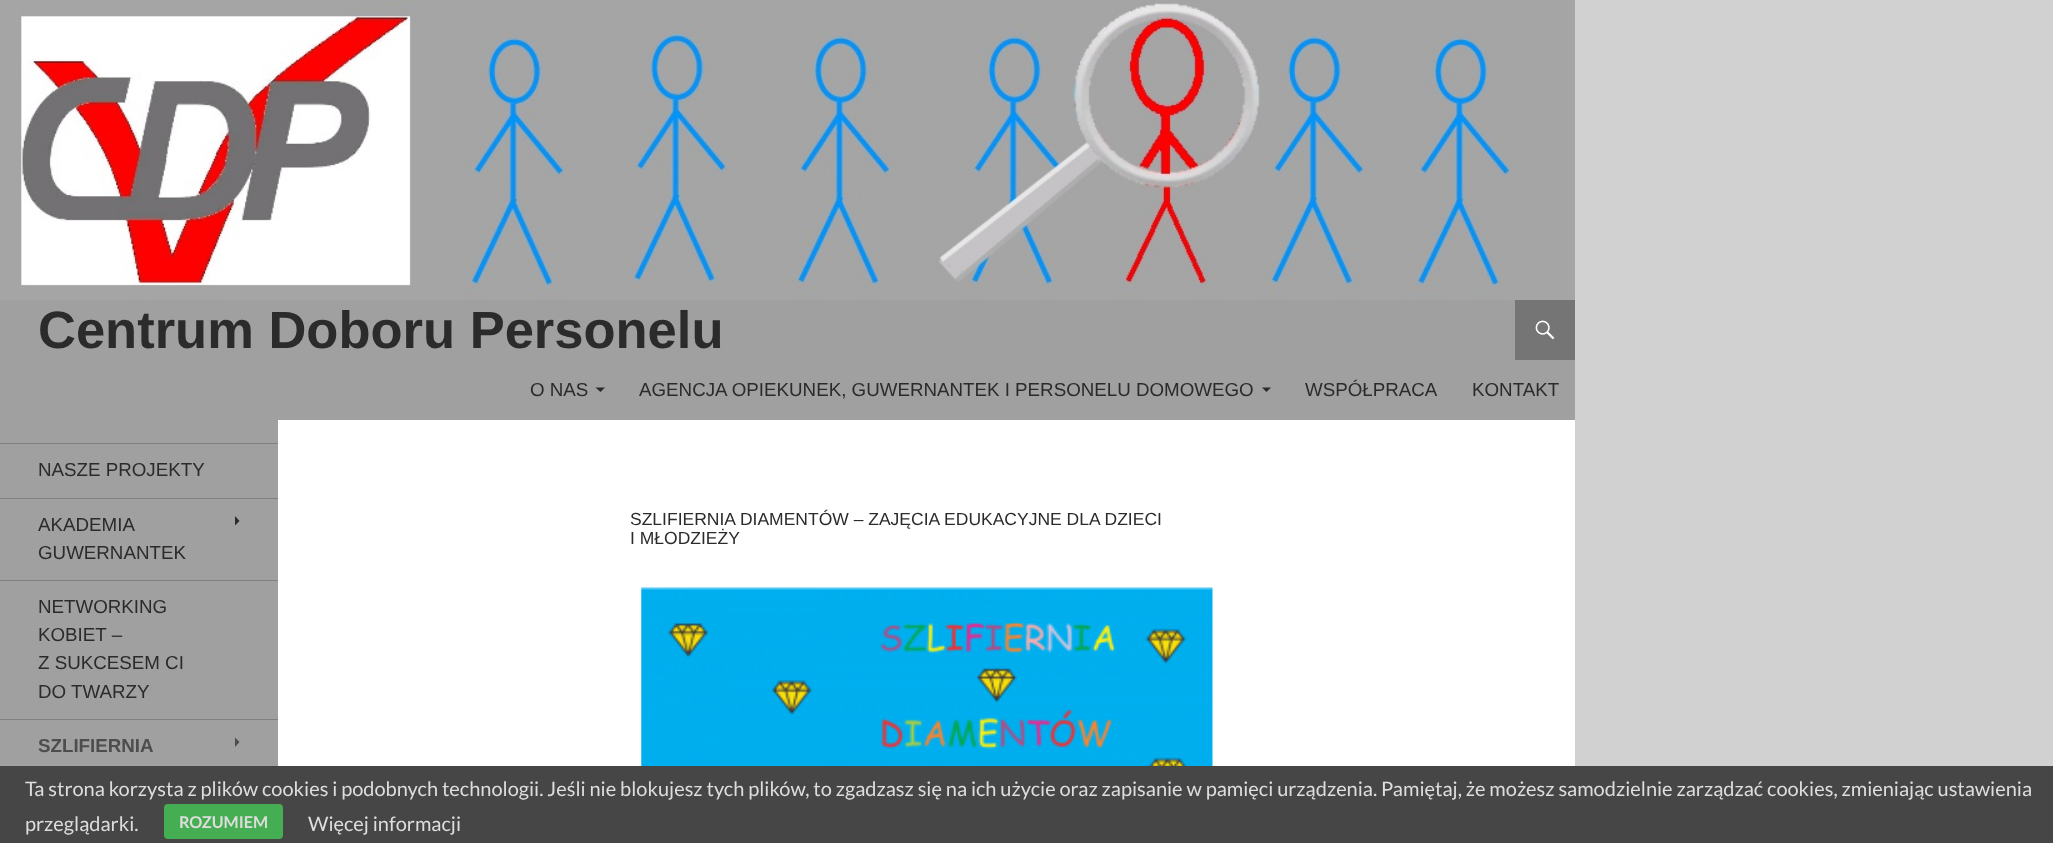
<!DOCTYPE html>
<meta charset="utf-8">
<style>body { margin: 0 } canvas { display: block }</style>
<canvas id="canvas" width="2053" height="843"></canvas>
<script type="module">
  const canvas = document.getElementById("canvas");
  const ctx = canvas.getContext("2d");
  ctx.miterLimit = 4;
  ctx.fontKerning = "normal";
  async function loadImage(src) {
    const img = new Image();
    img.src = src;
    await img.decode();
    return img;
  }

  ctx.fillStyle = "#d1d1d1";
  ctx.fillRect(0, 0, 2053, 843);
  ctx.fillStyle = "#ffffff";
  ctx.fillRect(278, 420, 1297, 346);
  ctx.drawImage(await loadImage("img1.png"), 0, 0, 1575, 300);
  ctx.fillStyle = "#a0a0a0";
  ctx.fillRect(0, 300, 1575, 120);
  ctx.font = "bold 52.5px Liberation Sans";
  ctx.fillStyle = "#2b2b2b";
  ctx.fillText("Centrum Doboru Personelu", 38, 348);
  ctx.fillStyle = "#757575";
  ctx.fillRect(1515, 300, 60, 60);
  ctx.drawImage(await loadImage("img2.png"), 1535, 320, 20, 20);
  ctx.font = "18.75px Liberation Sans";
  ctx.fillStyle = "#2b2b2b";
  ctx.fillText("O NAS", 530, 396);
  ctx.beginPath();
  ctx.moveTo(595.5, 387.5);
  ctx.lineTo(600.5, 392);
  ctx.lineTo(605, 387.5);
  ctx.closePath();
  ctx.fill();
  ctx.fillText("AGENCJA OPIEKUNEK, GUWERNANTEK I PERSONELU DOMOWEGO", 639, 396);
  ctx.beginPath();
  ctx.moveTo(1262, 387.5);
  ctx.lineTo(1266.5, 392);
  ctx.lineTo(1271, 387.5);
  ctx.closePath();
  ctx.fill();
  ctx.fillText("WSPÓŁPRACA", 1305, 396);
  ctx.fillText("KONTAKT", 1472, 396);
  ctx.fillStyle = "#a0a0a0";
  ctx.fillRect(0, 420, 278, 346);
  ctx.fillStyle = "#808080";
  ctx.fillRect(0, 443, 278, 1);
  ctx.fillStyle = "#2b2b2b";
  ctx.fillText("NASZE PROJEKTY", 38, 476);
  ctx.fillStyle = "#808080";
  ctx.fillRect(0, 498, 278, 1);
  ctx.fillStyle = "#2b2b2b";
  ctx.fillText("AKADEMIA", 38, 531);
  ctx.beginPath();
  ctx.moveTo(235, 525.5);
  ctx.lineTo(239.5, 521);
  ctx.lineTo(235, 516);
  ctx.closePath();
  ctx.fill();
  ctx.fillText("GUWERNANTEK", 38, 559);
  ctx.fillStyle = "#808080";
  ctx.fillRect(0, 580, 278, 1);
  ctx.fillStyle = "#2b2b2b";
  ctx.fillText("NETWORKING", 38, 613);
  ctx.fillText("KOBIET –", 38, 641);
  ctx.fillText("Z SUKCESEM CI", 38, 669);
  ctx.fillText("DO TWARZY", 38, 698);
  ctx.fillStyle = "#808080";
  ctx.fillRect(0, 719, 278, 1);
  ctx.font = "bold 18.75px Liberation Sans";
  ctx.fillStyle = "#4d4d4d";
  ctx.fillText("SZLIFIERNIA", 38, 752);
  ctx.beginPath();
  ctx.moveTo(235, 747);
  ctx.lineTo(239.5, 742);
  ctx.lineTo(235, 737.5);
  ctx.closePath();
  ctx.fill();
  ctx.font = "17.5px Liberation Sans";
  ctx.fillStyle = "#2b2b2b";
  ctx.fillText("SZLIFIERNIA DIAMENTÓW – ZAJĘCIA EDUKACYJNE DLA DZIECI", 630, 525);
  ctx.fillText("I MŁODZIEŻY", 630, 544);
  ctx.drawImage(await loadImage("img3.png"), 641, 587, 572, 179);
  ctx.fillStyle = "#464646";
  ctx.fillRect(0, 766, 2053, 77);
  ctx.font = "20px Lato";
  ctx.fillStyle = "#dddddd";
  ctx.fillText("Ta strona korzysta z plików cookies i podobnych technologii. Jeśli nie blokujesz tych plików, to zgadzasz się na ich użycie oraz zapisanie w pamięci urządzenia. Pamiętaj, że możesz samodzielnie zarządzać cookies, zmieniając ustawienia", 25, 796);
  ctx.fillText("przeglądarki.", 25, 831);
  ctx.fillStyle = "#45ae52";
  ctx.beginPath();
  ctx.roundRect(164, 804, 119, 35, 4);
  ctx.fill();
  ctx.font = "bold 16.25px Lato";
  ctx.fillStyle = "#dddddd";
  ctx.fillText("ROZUMIEM", 179, 828);
  ctx.font = "20px Lato";
  ctx.fillText("Więcej informacji", 308, 831);
</script>
